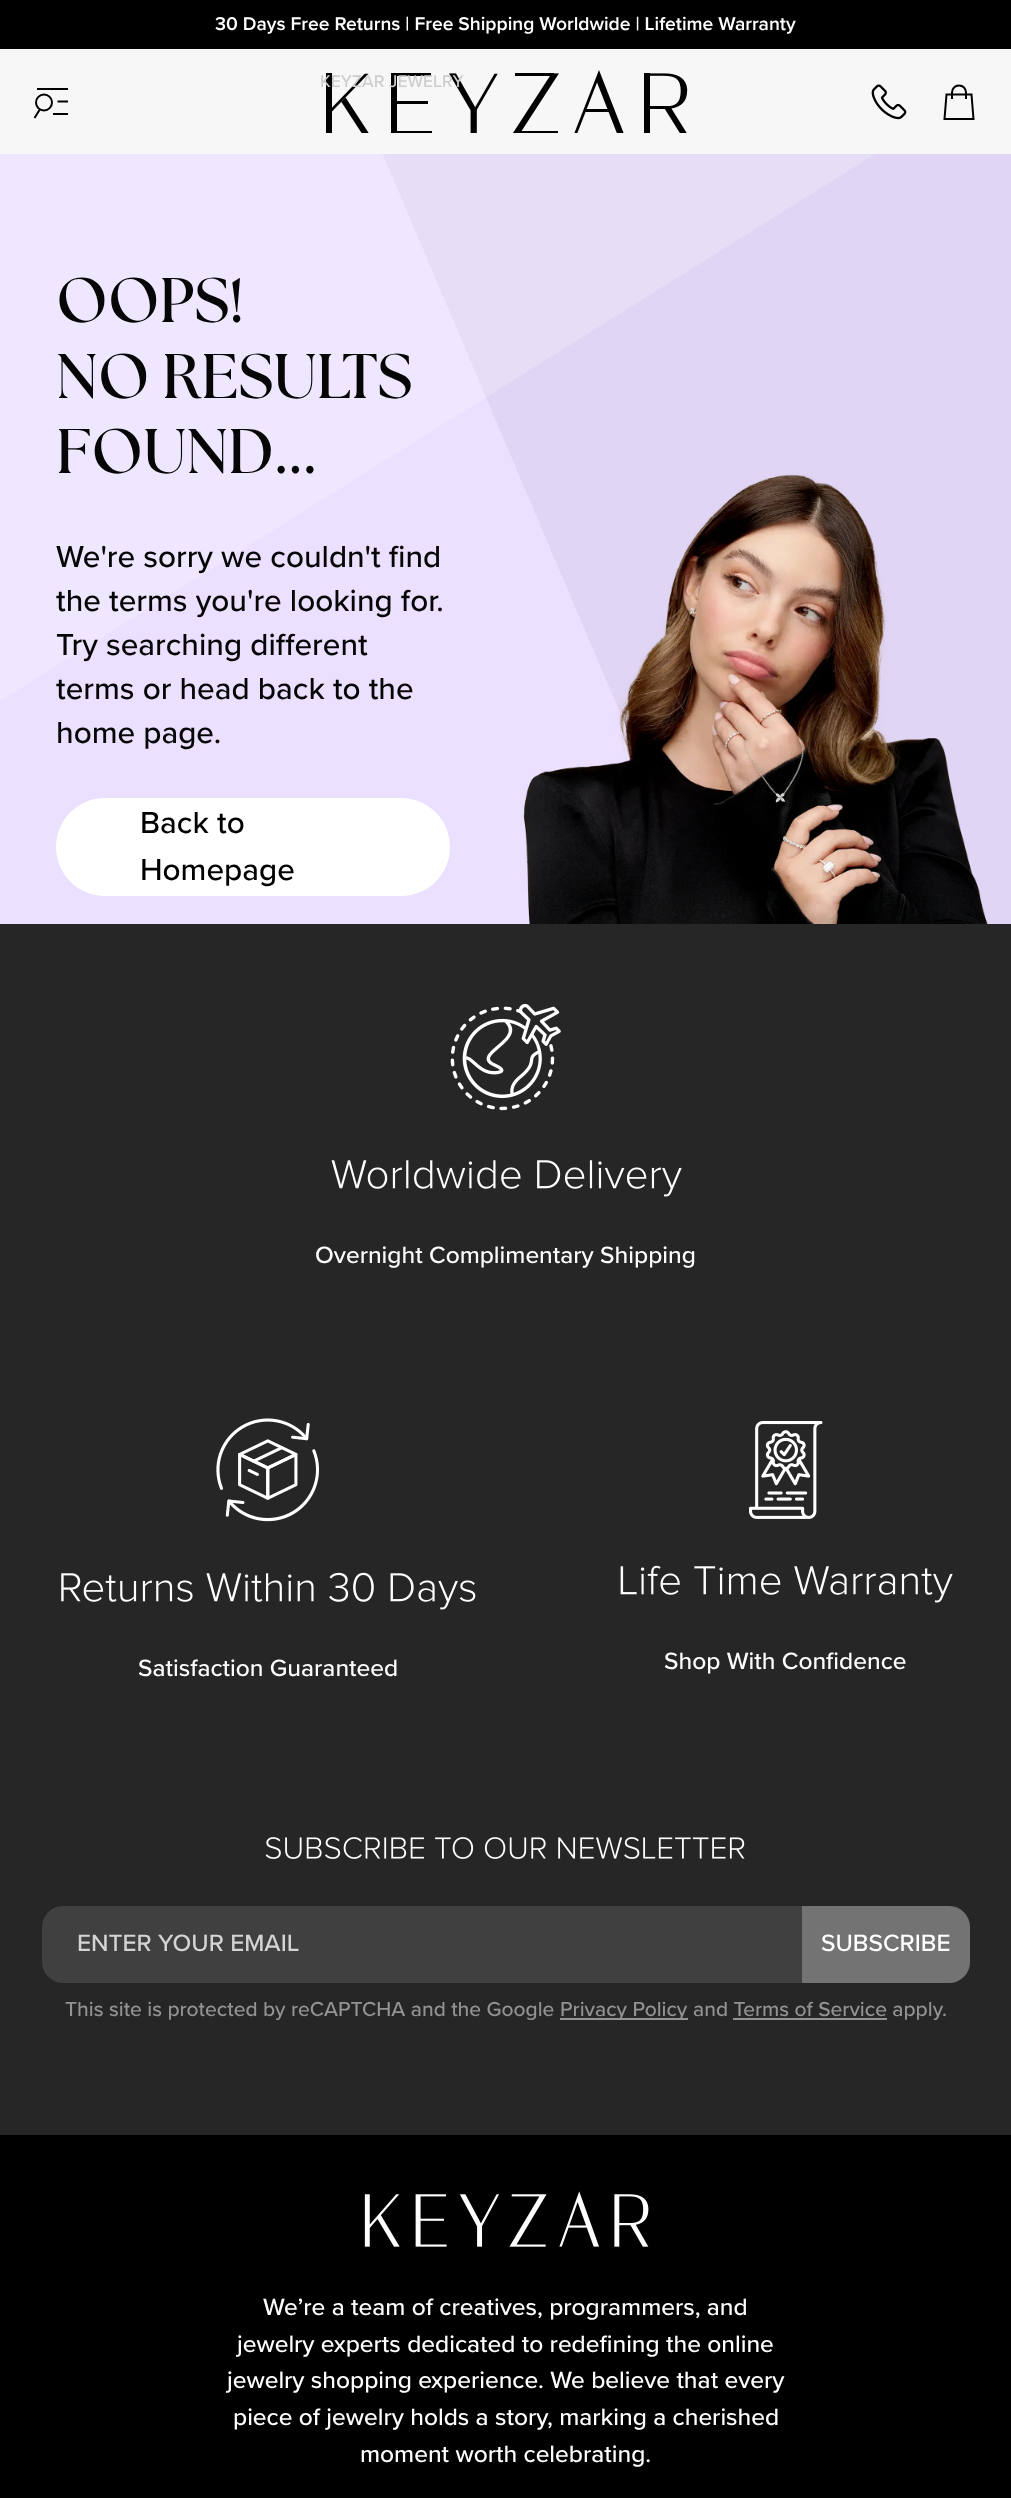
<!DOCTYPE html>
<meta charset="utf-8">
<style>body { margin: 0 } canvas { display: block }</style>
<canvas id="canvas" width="1011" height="2498"></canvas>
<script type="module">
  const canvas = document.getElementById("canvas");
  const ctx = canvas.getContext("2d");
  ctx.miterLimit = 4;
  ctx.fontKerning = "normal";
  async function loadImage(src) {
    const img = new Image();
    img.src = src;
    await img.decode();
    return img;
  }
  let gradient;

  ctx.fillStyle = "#ffffff";
  ctx.fillRect(0, 0, 1011, 2498);
  ctx.fillStyle = "#000000";
  ctx.fillRect(0, 0, 1011, 49);
  ctx.font = "600 19.25px Proxima Nova";
  ctx.fillStyle = "#ffffff";
  ctx.fillText("30 Days Free Returns | Free Shipping Worldwide | Lifetime Warranty", 215, 30);
  ctx.fillStyle = "#f7f7f7";
  ctx.fillRect(0, 49, 1011, 105);
  ctx.drawImage(await loadImage("img1.png"), 326, 70, 362, 63);
  ctx.font = "500 17.5px Proxima Nova";
  ctx.fillStyle = "#cdcdcd";
  ctx.fillText("KEYZAR JEWELRY", 320, 87);
  ctx.beginPath();
  ctx.arc(44, 102.5, 8, 0, Math.PI * 2);
  ctx.strokeStyle = "#000000";
  ctx.lineWidth = 2;
  ctx.stroke();
  ctx.beginPath();
  ctx.moveTo(39.5, 110);
  ctx.lineTo(34.5, 118);
  ctx.stroke();
  ctx.fillStyle = "#000000";
  ctx.fillRect(37, 88, 31, 2);
  ctx.beginPath();
  ctx.moveTo(57.5, 101.5);
  ctx.lineTo(68, 101.5);
  ctx.stroke();
  ctx.fillRect(53, 113, 15, 2);
  ctx.drawImage(await loadImage("img2.png"), 871, 84, 36, 36);
  ctx.beginPath();
  ctx.moveTo(971.5, 94.5);
  ctx.lineTo(946.5, 94.5);
  ctx.lineTo(944.5, 119);
  ctx.lineTo(973.5, 119);
  ctx.closePath();
  ctx.moveTo(952, 99);
  ctx.lineTo(952, 92.5);
  ctx.bezierCurveTo(952, 88.5, 955, 85.5, 959, 85.5);
  ctx.bezierCurveTo(963, 85.5, 966, 88.5, 966, 92.5);
  ctx.lineTo(966, 99);
  ctx.stroke();
  gradient = ctx.createLinearGradient(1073, 298, -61, 780);
  gradient.addColorStop(0.47, "#e0d5f4");
  gradient.addColorStop(0.47, "#ebe0ff");
  ctx.fillStyle = gradient;
  ctx.fillRect(0, 154, 1011, 770);
  gradient = ctx.createLinearGradient(191, 35, 821, 1043);
  gradient.addColorStop(0.39, "rgba(255, 255, 255, 0.2)");
  gradient.addColorStop(0.39, "rgba(255, 255, 255, 0)");
  ctx.fillStyle = gradient;
  ctx.fillRect(0, 154, 875, 547);
  ctx.font = "bold 63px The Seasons";
  ctx.fillStyle = "#060606";
  ctx.fillText("OOPS!", 56, 322);
  ctx.fillText("NO RESULTS", 56, 398);
  ctx.fillText("FOUND...", 56, 473);
  ctx.font = "500 31.5px Proxima Nova";
  ctx.fillText("We're sorry we couldn't find", 56, 567);
  ctx.fillText("the terms you're looking for.", 56, 611);
  ctx.fillText("Try searching different", 56, 655);
  ctx.fillText("terms or head back to the", 56, 699);
  ctx.fillText("home page.", 56, 743);
  ctx.fillStyle = "#ffffff";
  ctx.beginPath();
  ctx.roundRect(56, 798, 394, 98, 49);
  ctx.fill();
  ctx.fillStyle = "#000000";
  ctx.fillText("Back to", 140, 833);
  ctx.fillText("Homepage", 140, 880);
  ctx.drawImage(await loadImage("img3.png"), 523, 473, 465, 451);
  ctx.fillStyle = "#262626";
  ctx.fillRect(0, 924, 1011, 1211);
  ctx.drawImage(await loadImage("img4.png"), 450, 1003, 111, 108);
  ctx.drawImage(await loadImage("img5.png"), 331, 1160, 351, 37);
  ctx.font = "500 24.5px Proxima Nova";
  ctx.fillStyle = "#ffffff";
  ctx.fillText("Overnight Complimentary Shipping", 315, 1263);
  ctx.drawImage(await loadImage("img6.png"), 216, 1418, 104, 104);
  ctx.drawImage(await loadImage("img7.png"), 61, 1572, 415, 38);
  ctx.fillText("Satisfaction Guaranteed", 138, 1676);
  ctx.drawImage(await loadImage("img8.png"), 749, 1421, 74, 98);
  ctx.drawImage(await loadImage("img9.png"), 620, 1565, 333, 38);
  ctx.fillText("Shop With Confidence", 664, 1669);
  ctx.drawImage(await loadImage("img10.png"), 265, 1837, 480, 22);
  ctx.fillStyle = "#404040";
  ctx.beginPath();
  ctx.roundRect(42, 1906, 928, 77, 21);
  ctx.fill();
  ctx.fillStyle = "#d4d4d4";
  ctx.fillText("ENTER YOUR EMAIL", 77, 1951);
  ctx.fillStyle = "#737373";
  ctx.beginPath();
  ctx.roundRect(802, 1906, 168, 77, [0, 21, 21, 0]);
  ctx.fill();
  ctx.fillStyle = "#ffffff";
  ctx.fillText("SUBSCRIBE", 821, 1951);
  ctx.font = "500 21px Proxima Nova";
  ctx.fillStyle = "#939393";
  ctx.fillText("This site is protected by reCAPTCHA and the Google", 65, 2016);
  ctx.fillRect(560, 2018, 128, 2);
  ctx.fillText("Privacy Policy", 560, 2016);
  ctx.fillText("and Terms of Service apply.", 693, 2016);
  ctx.fillRect(733, 2018, 154, 2);
  ctx.fillStyle = "#000000";
  ctx.fillRect(0, 2135, 1011, 363);
  ctx.drawImage(await loadImage("img11.png"), 364, 2191, 285, 56);
  ctx.font = "500 24.5px Proxima Nova";
  ctx.fillStyle = "#ffffff";
  ctx.fillText("We’re a team of creatives, programmers, and", 263, 2315);
  ctx.fillText("jewelry experts dedicated to redefining the online", 237, 2352);
  ctx.fillText("jewelry shopping experience. We believe that every", 227, 2388);
  ctx.fillText("piece of jewelry holds a story, marking a cherished", 233, 2425);
  ctx.fillText("moment worth celebrating.", 360, 2462);
</script>
